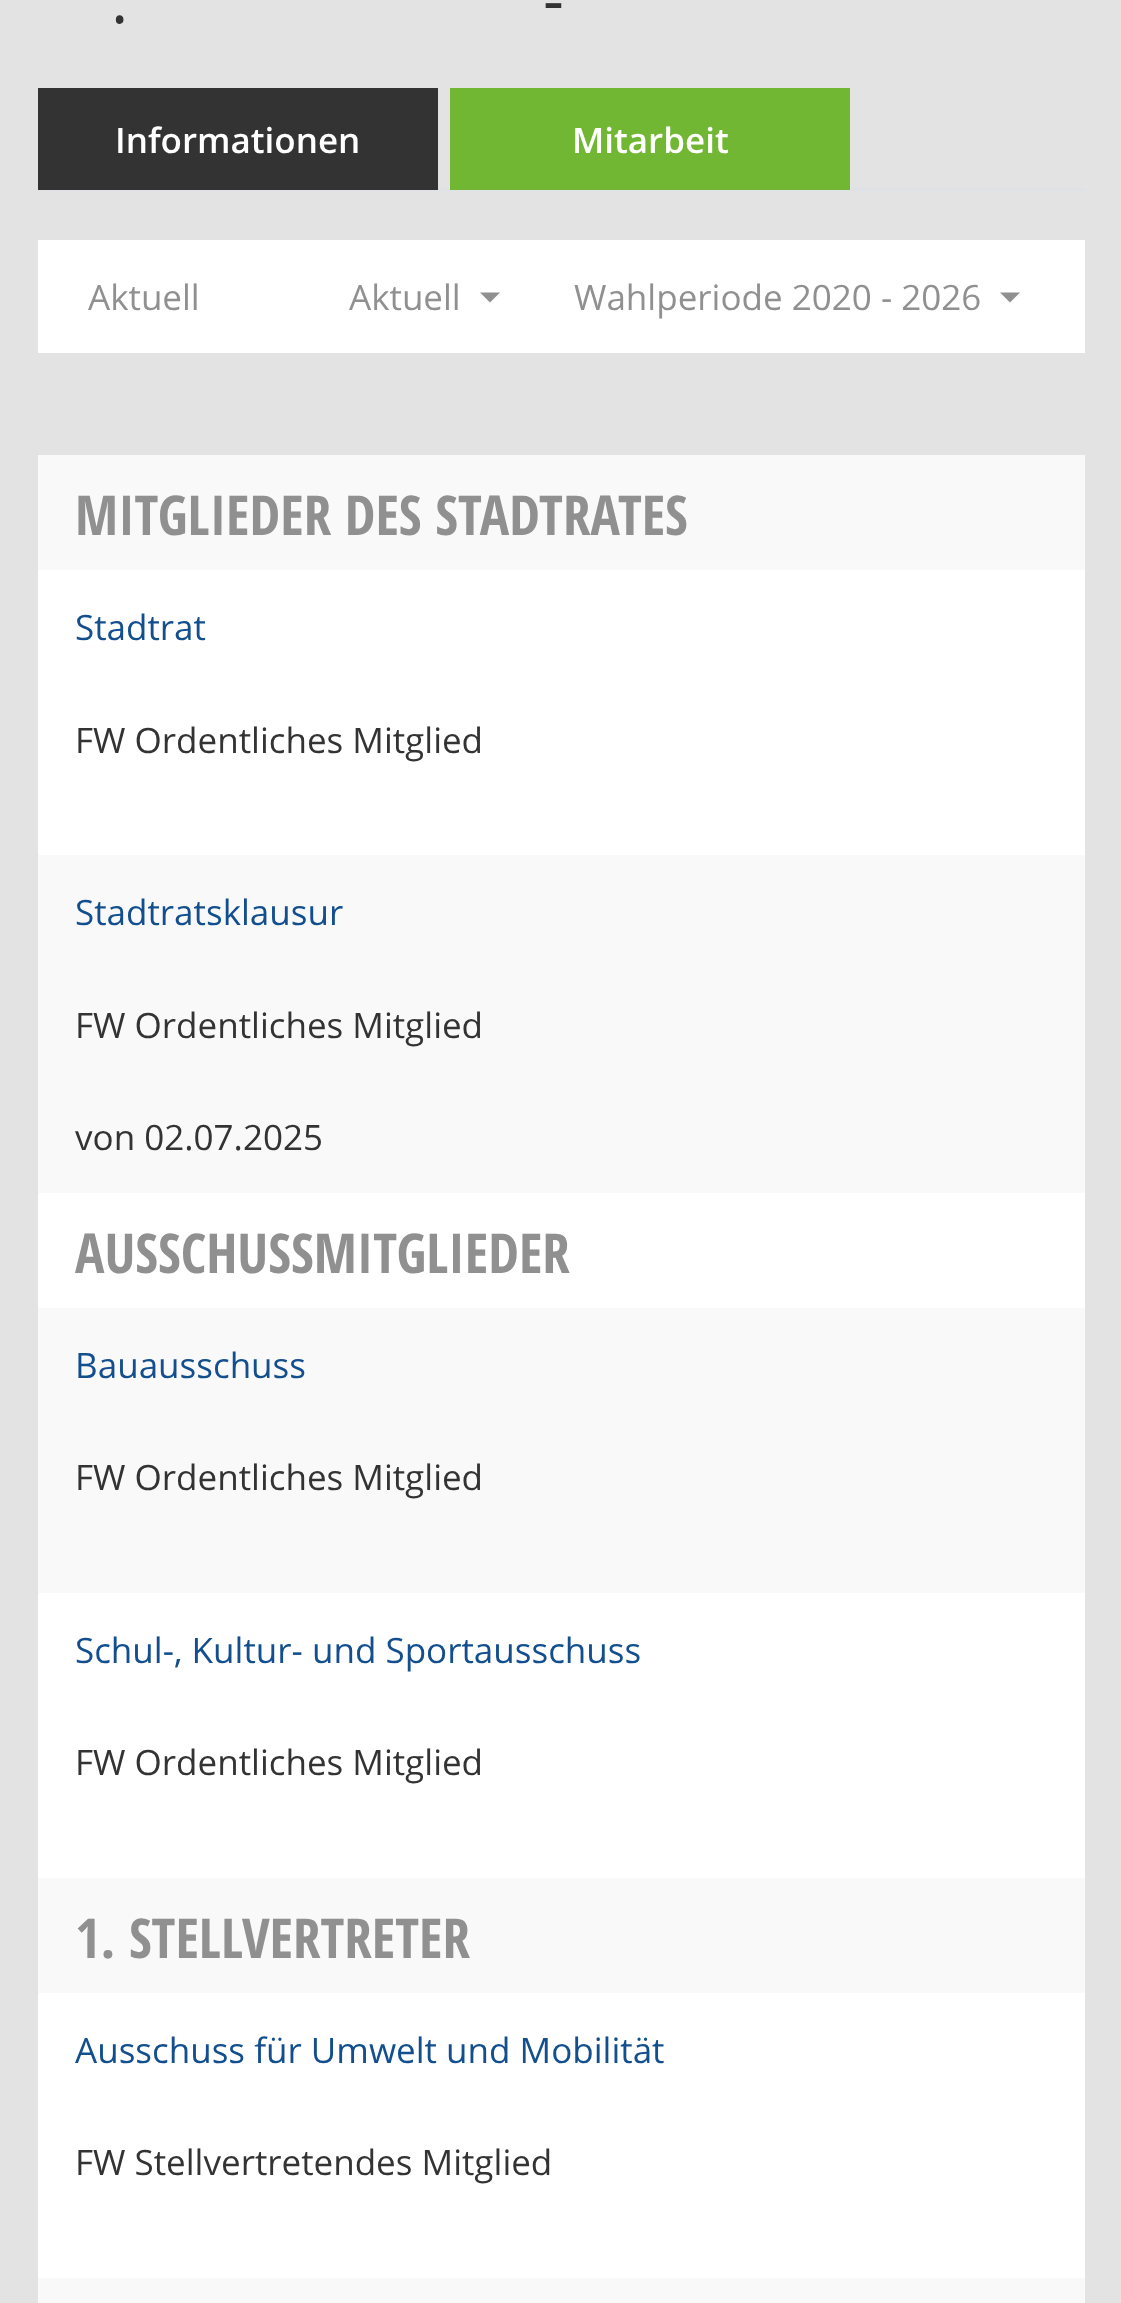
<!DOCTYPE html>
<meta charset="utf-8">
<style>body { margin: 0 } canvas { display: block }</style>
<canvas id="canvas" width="1121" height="2303"></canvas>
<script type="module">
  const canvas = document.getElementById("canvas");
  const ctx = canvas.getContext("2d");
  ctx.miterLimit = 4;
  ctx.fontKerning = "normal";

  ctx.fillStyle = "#e3e3e3";
  ctx.fillRect(0, 0, 1121, 2303);
  ctx.font = "65px Open Sans";
  ctx.fillStyle = "#333333";
  ctx.fillText("-", 543, 23);
  ctx.fillText(".", 111, 23);
  ctx.fillStyle = "#dee2e6";
  ctx.fillRect(38, 188, 1047, 3);
  ctx.fillStyle = "#333333";
  ctx.fillRect(38, 88, 400, 102);
  ctx.font = "600 35px Open Sans";
  ctx.fillStyle = "#ffffff";
  ctx.fillText("Informationen", 115, 153);
  ctx.fillStyle = "#71b733";
  ctx.fillRect(450, 88, 400, 102);
  ctx.fillStyle = "#ffffff";
  ctx.fillText("Mitarbeit", 572, 153);
  ctx.fillRect(38, 240, 1047, 113);
  ctx.font = "35px Open Sans";
  ctx.fillStyle = "#909090";
  ctx.fillText("Aktuell", 88, 310);
  ctx.fillText("Aktuell", 349, 310);
  ctx.beginPath();
  ctx.moveTo(480, 292.5);
  ctx.lineTo(500, 292.5);
  ctx.lineTo(490, 302.5);
  ctx.closePath();
  ctx.fill();
  ctx.fillText("Wahlperiode 2020 - 2026", 574, 310);
  ctx.beginPath();
  ctx.moveTo(1000, 292.5);
  ctx.lineTo(1020, 292.5);
  ctx.lineTo(1010, 302.5);
  ctx.closePath();
  ctx.fill();
  ctx.fillStyle = "#ffffff";
  ctx.fillRect(38, 570, 1047, 1708);
  ctx.fillStyle = "#f9f9f9";
  ctx.fillRect(38, 455, 1047, 115);
  ctx.font = "bold 55px Open Sans Condensed";
  ctx.fillStyle = "#909090";
  ctx.fillText("MITGLIEDER DES STADTRATES", 75, 535);
  ctx.font = "35px Open Sans";
  ctx.fillStyle = "#134f8e";
  ctx.fillText("Stadtrat", 75, 640);
  ctx.fillStyle = "#333333";
  ctx.fillText("FW Ordentliches Mitglied", 75, 753);
  ctx.fillStyle = "#f9f9f9";
  ctx.fillRect(38, 855, 1047, 338);
  ctx.fillStyle = "#134f8e";
  ctx.fillText("Stadtratsklausur", 75, 925);
  ctx.fillStyle = "#333333";
  ctx.fillText("FW Ordentliches Mitglied", 75, 1038);
  ctx.fillText("von 02.07.2025", 75, 1150);
  ctx.font = "bold 55px Open Sans Condensed";
  ctx.fillStyle = "#909090";
  ctx.fillText("AUSSCHUSSMITGLIEDER", 75, 1273);
  ctx.fillStyle = "#f9f9f9";
  ctx.fillRect(38, 1308, 1047, 285);
  ctx.font = "35px Open Sans";
  ctx.fillStyle = "#134f8e";
  ctx.fillText("Bauausschuss", 75, 1378);
  ctx.fillStyle = "#333333";
  ctx.fillText("FW Ordentliches Mitglied", 75, 1490);
  ctx.fillStyle = "#134f8e";
  ctx.fillText("Schul-, Kultur- und Sportausschuss", 75, 1663);
  ctx.fillStyle = "#333333";
  ctx.fillText("FW Ordentliches Mitglied", 75, 1775);
  ctx.fillStyle = "#f9f9f9";
  ctx.fillRect(38, 1878, 1047, 115);
  ctx.font = "bold 55px Open Sans Condensed";
  ctx.fillStyle = "#909090";
  ctx.fillText("1. STELLVERTRETER", 75, 1958);
  ctx.font = "35px Open Sans";
  ctx.fillStyle = "#134f8e";
  ctx.fillText("Ausschuss für Umwelt und Mobilität", 75, 2063);
  ctx.fillStyle = "#333333";
  ctx.fillText("FW Stellvertretendes Mitglied", 75, 2175);
  ctx.fillStyle = "#f9f9f9";
  ctx.fillRect(38, 2278, 1047, 25);
</script>
